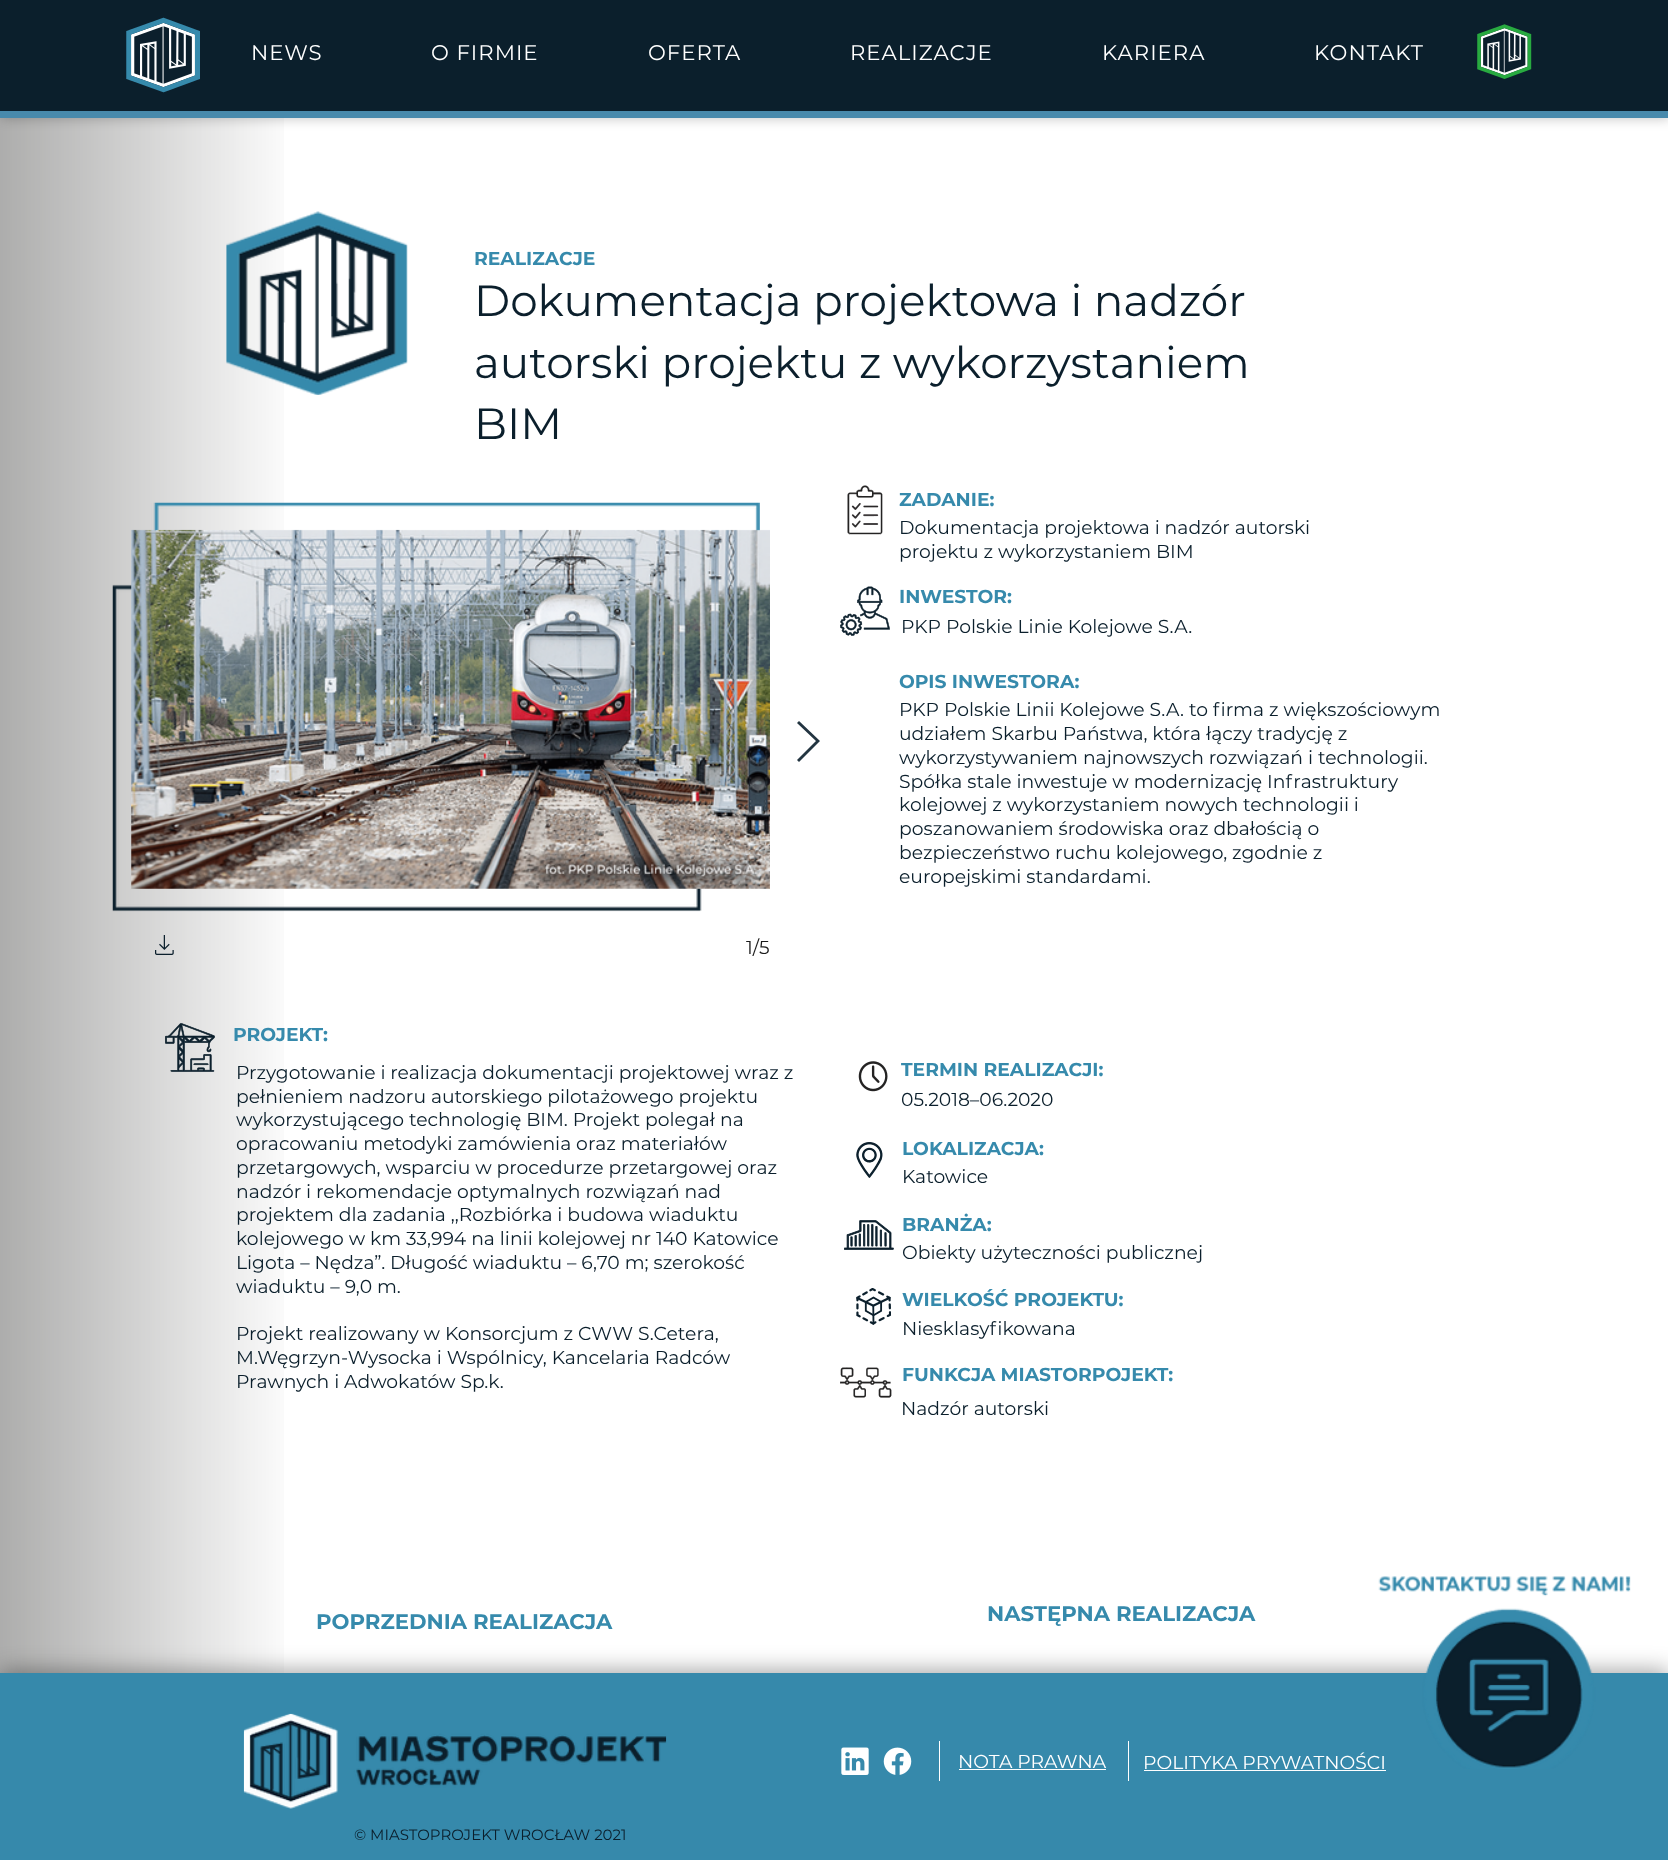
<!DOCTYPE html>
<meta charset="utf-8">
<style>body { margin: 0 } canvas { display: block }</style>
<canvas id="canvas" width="1668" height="1860"></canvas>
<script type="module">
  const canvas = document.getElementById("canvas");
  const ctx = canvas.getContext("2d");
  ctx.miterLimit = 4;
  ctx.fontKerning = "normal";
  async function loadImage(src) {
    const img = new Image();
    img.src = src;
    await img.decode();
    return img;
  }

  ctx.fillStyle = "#ffffff";
  ctx.fillRect(0, 0, 1668, 1860);
  ctx.drawImage(await loadImage("img1.png"), 0, 118, 284, 1555);
  ctx.fillStyle = "rgba(0, 0, 0, 0.21)";
  ctx.filter = "blur(6px)";
  ctx.beginPath();
  ctx.rect(1, 1, 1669, 118);
  ctx.fill();
  ctx.filter = "none";
  ctx.fillStyle = "#0b1f2c";
  ctx.fillRect(0, 0, 1668, 111);
  ctx.fillStyle = "#488aac";
  ctx.fillRect(0, 111, 1668, 7);
  ctx.drawImage(await loadImage("img2.png"), 126, 17, 74, 76);
  ctx.letterSpacing = "1px";
  ctx.font = "21.25px 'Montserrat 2'";
  ctx.fillStyle = "#ffffff";
  ctx.fillText("NEWS", 251, 60);
  ctx.fillText("O FIRMIE", 431, 60);
  ctx.fillText("OFERTA", 648, 60);
  ctx.fillText("REALIZACJE", 850, 60);
  ctx.fillText("KARIERA", 1102, 60);
  ctx.fillText("KONTAKT", 1314, 60);
  ctx.drawImage(await loadImage("img3.png"), 1477, 24, 55, 55);
  ctx.drawImage(await loadImage("img4.png"), 226, 211, 182, 184);
  ctx.letterSpacing = "0px";
  ctx.font = "bold 18.75px Montserrat";
  ctx.fillStyle = "#368aac";
  ctx.fillText("REALIZACJE", 474, 265);
  ctx.font = "43.75px Montserrat";
  ctx.fillStyle = "#0b1f2c";
  ctx.fillText("Dokumentacja projektowa i nadzór", 474, 316);
  ctx.fillText("autorski projektu z wykorzystaniem", 474, 378);
  ctx.fillText("BIM", 474, 439);
  ctx.drawImage(await loadImage("img5.png"), 165, 1023, 50, 49);
  ctx.font = "bold 18.75px Montserrat";
  ctx.fillStyle = "#368aac";
  ctx.fillText("PROJEKT:", 233, 1041);
  ctx.font = "18.75px 'Montserrat 2'";
  ctx.fillStyle = "#0b1f2c";
  ctx.fillText("Przygotowanie i realizacja dokumentacji projektowej wraz z", 236, 1079);
  ctx.fillText("pełnieniem nadzoru autorskiego pilotażowego projektu", 236, 1103);
  ctx.fillText("wykorzystującego technologię BIM. Projekt polegał na", 236, 1126);
  ctx.fillText("opracowaniu metodyki zamówienia oraz materiałów", 236, 1150);
  ctx.fillText("przetargowych, wsparciu w procedurze przetargowej oraz", 236, 1174);
  ctx.fillText("nadzór i rekomendacje optymalnych rozwiązań nad", 236, 1198);
  ctx.fillText("projektem dla zadania ,,Rozbiórka i budowa wiaduktu", 236, 1221);
  ctx.fillText("kolejowego w km 33,994 na linii kolejowej nr 140 Katowice", 236, 1245);
  ctx.fillText("Ligota – Nędza”. Długość wiaduktu – 6,70 m; szerokość", 236, 1269);
  ctx.fillText("wiaduktu – 9,0 m.", 236, 1293);
  ctx.fillText("Projekt realizowany w Konsorcjum z CWW S.Cetera,", 236, 1340);
  ctx.fillText("M.Węgrzyn-Wysocka i Wspólnicy, Kancelaria Radców", 236, 1364);
  ctx.fillText("Prawnych i Adwokatów Sp.k.", 236, 1388);
  ctx.drawImage(await loadImage("img6.png"), 847, 485, 36, 50);
  ctx.font = "bold 18.75px Montserrat";
  ctx.fillStyle = "#368aac";
  ctx.fillText("ZADANIE:", 899, 506);
  ctx.font = "18.75px 'Montserrat 2'";
  ctx.fillStyle = "#0b1f2c";
  ctx.fillText("Dokumentacja projektowa i nadzór autorski", 899, 534);
  ctx.fillText("projektu z wykorzystaniem BIM", 899, 558);
  ctx.drawImage(await loadImage("img7.png"), 840, 586, 50, 50);
  ctx.font = "bold 18.75px Montserrat";
  ctx.fillStyle = "#368aac";
  ctx.fillText("INWESTOR:", 899, 603);
  ctx.font = "18.75px 'Montserrat 2'";
  ctx.fillStyle = "#0b1f2c";
  ctx.fillText("PKP Polskie Linie Kolejowe S.A.", 901, 633);
  ctx.font = "bold 18.75px Montserrat";
  ctx.fillStyle = "#368aac";
  ctx.fillText("OPIS INWESTORA:", 899, 688);
  ctx.font = "18.75px 'Montserrat 2'";
  ctx.fillStyle = "#0b1f2c";
  ctx.fillText("PKP Polskie Linii Kolejowe S.A. to firma z większościowym", 899, 716);
  ctx.fillText("udziałem Skarbu Państwa, która łączy tradycję z", 899, 740);
  ctx.fillText("wykorzystywaniem najnowszych rozwiązań i technologii.", 899, 764);
  ctx.fillText("Spółka stale inwestuje w modernizację Infrastruktury", 899, 788);
  ctx.fillText("kolejowej z wykorzystaniem nowych technologii i", 899, 811);
  ctx.fillText("poszanowaniem środowiska oraz dbałością o", 899, 835);
  ctx.fillText("bezpieczeństwo ruchu kolejowego, zgodnie z", 899, 859);
  ctx.fillText("europejskimi standardami.", 899, 883);
  ctx.drawImage(await loadImage("img8.png"), 858, 1061, 30, 31);
  ctx.font = "bold 18.75px Montserrat";
  ctx.fillStyle = "#368aac";
  ctx.fillText("TERMIN REALIZACJI:", 901, 1076);
  ctx.font = "18.75px 'Montserrat 2'";
  ctx.fillStyle = "#0b1f2c";
  ctx.fillText("05.2018–06.2020", 901, 1106);
  ctx.drawImage(await loadImage("img9.png"), 856, 1142, 27, 36);
  ctx.font = "bold 18.75px Montserrat";
  ctx.fillStyle = "#368aac";
  ctx.fillText("LOKALIZACJA:", 902, 1155);
  ctx.font = "18.75px 'Montserrat 2'";
  ctx.fillStyle = "#0b1f2c";
  ctx.fillText("Katowice", 902, 1183);
  ctx.drawImage(await loadImage("img10.png"), 844, 1220, 50, 30);
  ctx.font = "bold 18.75px Montserrat";
  ctx.fillStyle = "#368aac";
  ctx.fillText("BRANŻA:", 902, 1231);
  ctx.font = "18.75px 'Montserrat 2'";
  ctx.fillStyle = "#0b1f2c";
  ctx.fillText("Obiekty użyteczności publicznej", 902, 1259);
  ctx.drawImage(await loadImage("img11.png"), 856, 1288, 35, 37);
  ctx.font = "bold 18.75px Montserrat";
  ctx.fillStyle = "#368aac";
  ctx.fillText("WIELKOŚĆ PROJEKTU:", 902, 1306);
  ctx.font = "18.75px 'Montserrat 2'";
  ctx.fillStyle = "#0b1f2c";
  ctx.fillText("Niesklasyfikowana", 902, 1335);
  ctx.drawImage(await loadImage("img12.png"), 840, 1367, 52, 31);
  ctx.font = "bold 18.75px Montserrat";
  ctx.fillStyle = "#368aac";
  ctx.fillText("FUNKCJA MIASTORPOJEKT:", 902, 1381);
  ctx.font = "18.75px 'Montserrat 2'";
  ctx.fillStyle = "#0b1f2c";
  ctx.fillText("Nadzór autorski", 901, 1415);
  ctx.drawImage(await loadImage("img13.png"), 112, 502, 648, 410);
  ctx.drawImage(await loadImage("img14.png"), 131, 529, 639, 360);
  ctx.drawImage(await loadImage("img15.png"), 155, 935, 19, 20);
  ctx.fillStyle = "#233541";
  ctx.beginPath();
  ctx.moveTo(797, 723);
  ctx.lineTo(799, 721);
  ctx.lineTo(820, 741);
  ctx.lineTo(799, 762);
  ctx.lineTo(797, 760);
  ctx.lineTo(816, 741);
  ctx.closePath();
  ctx.fill();
  ctx.fillStyle = "#1a1a1a";
  ctx.fillText("1/5", 746, 954);
  ctx.font = "bold 21.25px 'Montserrat 2'";
  ctx.fillStyle = "#368aac";
  ctx.fillText("POPRZEDNIA REALIZACJA", 316, 1629);
  ctx.fillText("NASTĘPNA REALIZACJA", 987, 1621);
  ctx.fillStyle = "rgba(0, 0, 0, 0.35)";
  ctx.filter = "blur(11px)";
  ctx.beginPath();
  ctx.rect(0, 1670, 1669, 190);
  ctx.fill();
  ctx.filter = "none";
  ctx.fillStyle = "#3689ab";
  ctx.fillRect(0, 1673, 1668, 187);
  ctx.font = "18.75px Montserrat";
  ctx.fillStyle = "#ffffff";
  ctx.fillText("POLITYKA PRYWATNOŚCI", 1143, 1769);
  ctx.drawImage(await loadImage("img16.png"), 1378, 1576, 253, 193);
  ctx.drawImage(await loadImage("img17.png"), 243, 1713, 424, 96);
  ctx.drawImage(await loadImage("img18.png"), 841, 1747, 28, 28);
  ctx.drawImage(await loadImage("img19.png"), 883, 1747, 29, 28);
  ctx.fillRect(939, 1741, 1, 40);
  ctx.fillText("NOTA PRAWNA", 958, 1768);
  ctx.fillRect(959, 1769, 147, 1);
  ctx.fillRect(1128, 1741, 1, 40);
  ctx.fillRect(1144, 1770, 242, 1);
  ctx.font = "15px Montserrat";
  ctx.fillStyle = "#0b1f2c";
  ctx.fillText("© MIASTOPROJEKT WROCŁAW 2021", 354, 1840);
</script>
